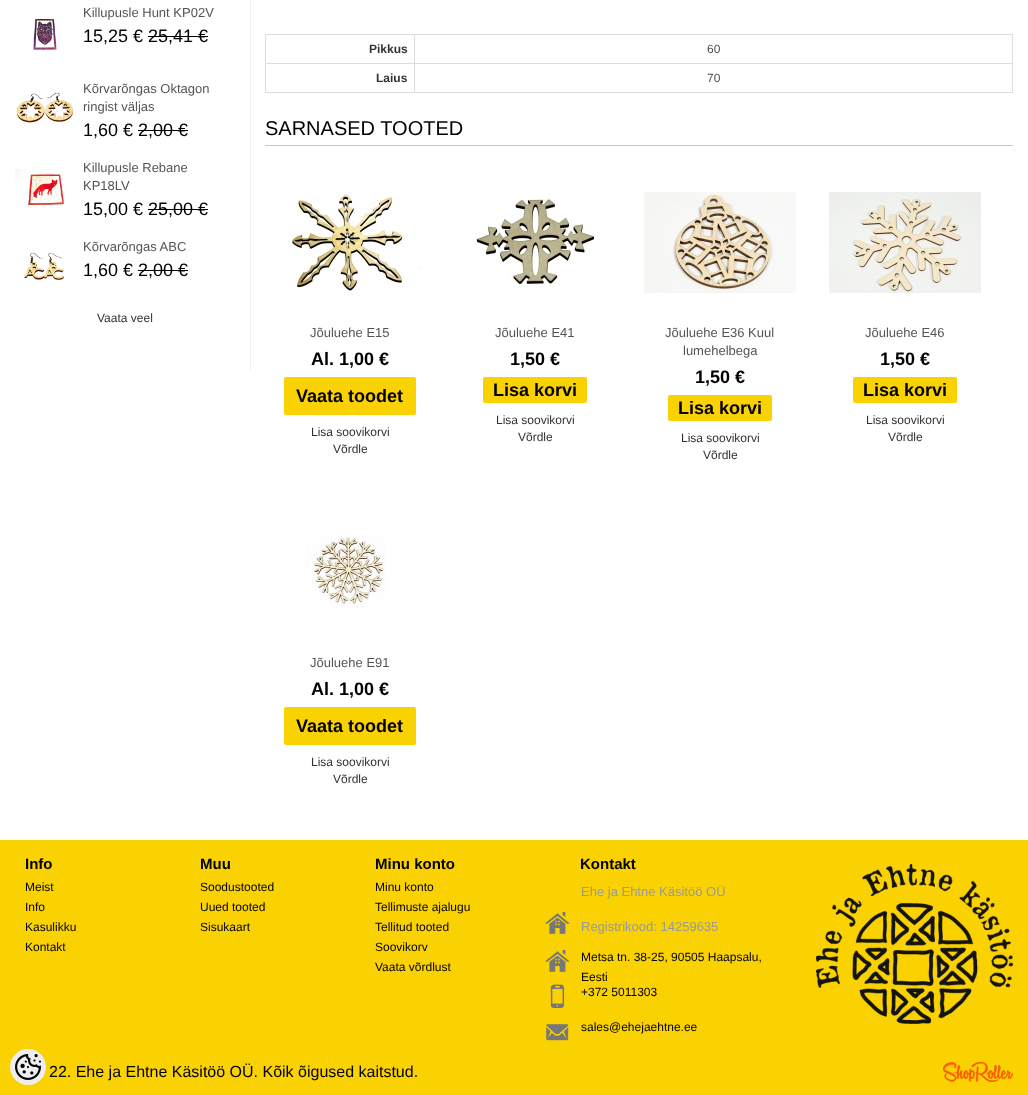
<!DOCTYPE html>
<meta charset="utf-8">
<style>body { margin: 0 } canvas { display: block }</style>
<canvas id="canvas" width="1028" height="1095"></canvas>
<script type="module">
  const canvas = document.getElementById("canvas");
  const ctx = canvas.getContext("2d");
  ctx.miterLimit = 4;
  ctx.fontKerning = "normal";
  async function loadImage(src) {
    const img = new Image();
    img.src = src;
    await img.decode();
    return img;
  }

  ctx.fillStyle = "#ffffff";
  ctx.fillRect(0, 0, 1028, 1095);
  ctx.fillStyle = "#eeeeee";
  ctx.fillRect(250, 0, 1, 370);
  ctx.font = "13px Liberation Sans";
  ctx.fillStyle = "#555555";
  ctx.fillText("Killupusle Hunt KP02V", 83, 17);
  ctx.drawImage(await loadImage("img1.png"), 33, 18, 24, 32);
  ctx.font = "18px Liberation Sans";
  ctx.fillStyle = "#000000";
  ctx.fillText("15,25 € 25,41 €", 83, 42);
  ctx.fillRect(148, 36, 60, 1);
  ctx.drawImage(await loadImage("img2.png"), 16, 92, 58, 31);
  ctx.font = "13px Liberation Sans";
  ctx.fillStyle = "#555555";
  ctx.fillText("Kõrvarõngas Oktagon", 83, 93);
  ctx.fillText("ringist väljas", 83, 111);
  ctx.font = "18px Liberation Sans";
  ctx.fillStyle = "#000000";
  ctx.fillText("1,60 € 2,00 €", 83, 136);
  ctx.fillRect(138, 130, 50, 1);
  ctx.drawImage(await loadImage("img3.png"), 15, 169, 50, 36);
  ctx.font = "13px Liberation Sans";
  ctx.fillStyle = "#555555";
  ctx.fillText("Killupusle Rebane", 83, 172);
  ctx.fillText("KP18LV", 83, 190);
  ctx.font = "18px Liberation Sans";
  ctx.fillStyle = "#000000";
  ctx.fillText("15,00 € 25,00 €", 83, 215);
  ctx.fillRect(148, 209, 60, 1);
  ctx.font = "13px Liberation Sans";
  ctx.fillStyle = "#555555";
  ctx.fillText("Kõrvarõngas ABC", 83, 251);
  ctx.drawImage(await loadImage("img4.png"), 24, 252, 41, 28);
  ctx.font = "18px Liberation Sans";
  ctx.fillStyle = "#000000";
  ctx.fillText("1,60 € 2,00 €", 83, 276);
  ctx.fillRect(138, 270, 50, 1);
  ctx.font = "12px Liberation Sans";
  ctx.fillStyle = "#333333";
  ctx.fillText("Vaata veel", 97, 322);
  ctx.fillStyle = "#dddddd";
  ctx.fillRect(265, 34, 748, 1);
  ctx.fillRect(265, 34, 1, 59);
  ctx.fillRect(1012, 34, 1, 59);
  ctx.fillRect(414, 92, 599, 1);
  ctx.fillRect(414, 63, 1, 30);
  ctx.fillRect(414, 63, 599, 1);
  ctx.fillRect(414, 34, 1, 30);
  ctx.fillRect(265, 63, 150, 1);
  ctx.font = "bold 12px Liberation Sans";
  ctx.fillStyle = "#333333";
  ctx.fillText("Pikkus", 369, 53);
  ctx.font = "12px Liberation Sans";
  ctx.fillStyle = "#4d4d4d";
  ctx.fillText("60", 707, 53);
  ctx.fillStyle = "#dddddd";
  ctx.fillRect(265, 92, 150, 1);
  ctx.font = "bold 12px Liberation Sans";
  ctx.fillStyle = "#333333";
  ctx.fillText("Laius", 376, 82);
  ctx.font = "12px Liberation Sans";
  ctx.fillStyle = "#4d4d4d";
  ctx.fillText("70", 707, 82);
  ctx.fillStyle = "#fad201";
  ctx.fillRect(265, 145, 748, 1);
  ctx.font = "20px Liberation Sans";
  ctx.fillStyle = "#000000";
  ctx.fillText("SARNASED TOOTED", 265, 135);
  ctx.drawImage(await loadImage("img5.png"), 290, 189, 131, 106);
  ctx.font = "13px Liberation Sans";
  ctx.fillStyle = "#555555";
  ctx.fillText("Jõuluehe E15", 310, 337);
  ctx.font = "bold 18px Liberation Sans";
  ctx.fillStyle = "#000000";
  ctx.fillText("Al. 1,00 €", 311, 365);
  ctx.fillStyle = "#fad201";
  ctx.beginPath();
  ctx.roundRect(284, 377, 132, 38, 2);
  ctx.fill();
  ctx.fillStyle = "#000000";
  ctx.fillText("Vaata toodet", 296, 402);
  ctx.font = "12px Liberation Sans";
  ctx.fillStyle = "#333333";
  ctx.fillText("Lisa soovikorvi", 311, 436);
  ctx.fillText("Võrdle", 333, 453);
  ctx.drawImage(await loadImage("img6.png"), 476, 198, 119, 89);
  ctx.font = "13px Liberation Sans";
  ctx.fillStyle = "#555555";
  ctx.fillText("Jõuluehe E41", 495, 337);
  ctx.font = "bold 18px Liberation Sans";
  ctx.fillStyle = "#000000";
  ctx.fillText("1,50 €", 510, 365);
  ctx.fillStyle = "#fad201";
  ctx.beginPath();
  ctx.roundRect(483, 377, 104, 26, 2);
  ctx.fill();
  ctx.fillStyle = "#000000";
  ctx.fillText("Lisa korvi", 493, 396);
  ctx.font = "12px Liberation Sans";
  ctx.fillStyle = "#333333";
  ctx.fillText("Lisa soovikorvi", 496, 424);
  ctx.fillText("Võrdle", 518, 441);
  ctx.drawImage(await loadImage("img7.png"), 644, 192, 152, 103);
  ctx.font = "13px Liberation Sans";
  ctx.fillStyle = "#555555";
  ctx.fillText("Jõuluehe E36 Kuul", 665, 337);
  ctx.fillText("lumehelbega", 683, 355);
  ctx.font = "bold 18px Liberation Sans";
  ctx.fillStyle = "#000000";
  ctx.fillText("1,50 €", 695, 383);
  ctx.fillStyle = "#fad201";
  ctx.beginPath();
  ctx.roundRect(668, 395, 104, 26, 2);
  ctx.fill();
  ctx.fillStyle = "#000000";
  ctx.fillText("Lisa korvi", 678, 414);
  ctx.font = "12px Liberation Sans";
  ctx.fillStyle = "#333333";
  ctx.fillText("Lisa soovikorvi", 681, 442);
  ctx.fillText("Võrdle", 703, 459);
  ctx.drawImage(await loadImage("img8.png"), 829, 192, 152, 103);
  ctx.font = "13px Liberation Sans";
  ctx.fillStyle = "#555555";
  ctx.fillText("Jõuluehe E46", 865, 337);
  ctx.font = "bold 18px Liberation Sans";
  ctx.fillStyle = "#000000";
  ctx.fillText("1,50 €", 880, 365);
  ctx.fillStyle = "#fad201";
  ctx.beginPath();
  ctx.roundRect(853, 377, 104, 26, 2);
  ctx.fill();
  ctx.fillStyle = "#000000";
  ctx.fillText("Lisa korvi", 863, 396);
  ctx.font = "12px Liberation Sans";
  ctx.fillStyle = "#333333";
  ctx.fillText("Lisa soovikorvi", 866, 424);
  ctx.fillText("Võrdle", 888, 441);
  ctx.drawImage(await loadImage("img9.png"), 306, 530, 80, 79);
  ctx.font = "13px Liberation Sans";
  ctx.fillStyle = "#555555";
  ctx.fillText("Jõuluehe E91", 310, 667);
  ctx.font = "bold 18px Liberation Sans";
  ctx.fillStyle = "#000000";
  ctx.fillText("Al. 1,00 €", 311, 695);
  ctx.fillStyle = "#fad201";
  ctx.beginPath();
  ctx.roundRect(284, 707, 132, 38, 2);
  ctx.fill();
  ctx.fillStyle = "#000000";
  ctx.fillText("Vaata toodet", 296, 732);
  ctx.font = "12px Liberation Sans";
  ctx.fillStyle = "#333333";
  ctx.fillText("Lisa soovikorvi", 311, 766);
  ctx.fillText("Võrdle", 333, 783);
  ctx.fillStyle = "#fad201";
  ctx.fillRect(0, 840, 1028, 255);
  ctx.font = "bold 15px Liberation Sans";
  ctx.fillStyle = "#000000";
  ctx.fillText("Info", 25, 869);
  ctx.font = "12px Liberation Sans";
  ctx.fillText("Meist", 25, 891);
  ctx.fillText("Info", 25, 911);
  ctx.fillText("Kasulikku", 25, 931);
  ctx.fillText("Kontakt", 25, 951);
  ctx.font = "bold 15px Liberation Sans";
  ctx.fillText("Muu", 200, 869);
  ctx.font = "12px Liberation Sans";
  ctx.fillText("Soodustooted", 200, 891);
  ctx.fillText("Uued tooted", 200, 911);
  ctx.fillText("Sisukaart", 200, 931);
  ctx.font = "bold 15px Liberation Sans";
  ctx.fillText("Minu konto", 375, 869);
  ctx.font = "12px Liberation Sans";
  ctx.fillText("Minu konto", 375, 891);
  ctx.fillText("Tellimuste ajalugu", 375, 911);
  ctx.fillText("Tellitud tooted", 375, 931);
  ctx.fillText("Soovikorv", 375, 951);
  ctx.fillText("Vaata võrdlust", 375, 971);
  ctx.font = "bold 15px Liberation Sans";
  ctx.fillText("Kontakt", 580, 869);
  ctx.font = "13px Liberation Sans";
  ctx.fillStyle = "#999999";
  ctx.fillText("Ehe ja Ehtne Käsitöö OÜ", 581, 896);
  ctx.drawImage(await loadImage("img10.png"), 545, 912, 25, 22);
  ctx.fillText("Registrikood: 14259635", 581, 931);
  ctx.drawImage(await loadImage("img10.png"), 545, 950, 25, 22);
  ctx.font = "12px Liberation Sans";
  ctx.fillStyle = "#000000";
  ctx.fillText("Metsa tn. 38-25, 90505 Haapsalu,", 581, 961);
  ctx.fillText("Eesti", 581, 981);
  ctx.drawImage(await loadImage("img11.png"), 550, 984, 15, 24);
  ctx.fillText("+372 5011303", 581, 996);
  ctx.drawImage(await loadImage("img12.png"), 546, 1024, 23, 17);
  ctx.fillText("sales@ehejaehtne.ee", 581, 1031);
  ctx.drawImage(await loadImage("img13.png"), 816, 864, 197, 160);
  ctx.font = "16px Liberation Sans";
  ctx.fillText("22. Ehe ja Ehtne Käsitöö OÜ. Kõik õigused kaitstud.", 49, 1077);
  ctx.drawImage(await loadImage("img14.png"), 943, 1062, 70, 20);
  ctx.fillStyle = "#eeeeee";
  ctx.beginPath();
  ctx.arc(28, 1067, 18, 0, Math.PI * 2);
  ctx.fill();
  ctx.drawImage(await loadImage("img15.png"), 15, 1054, 26, 26);
</script>
